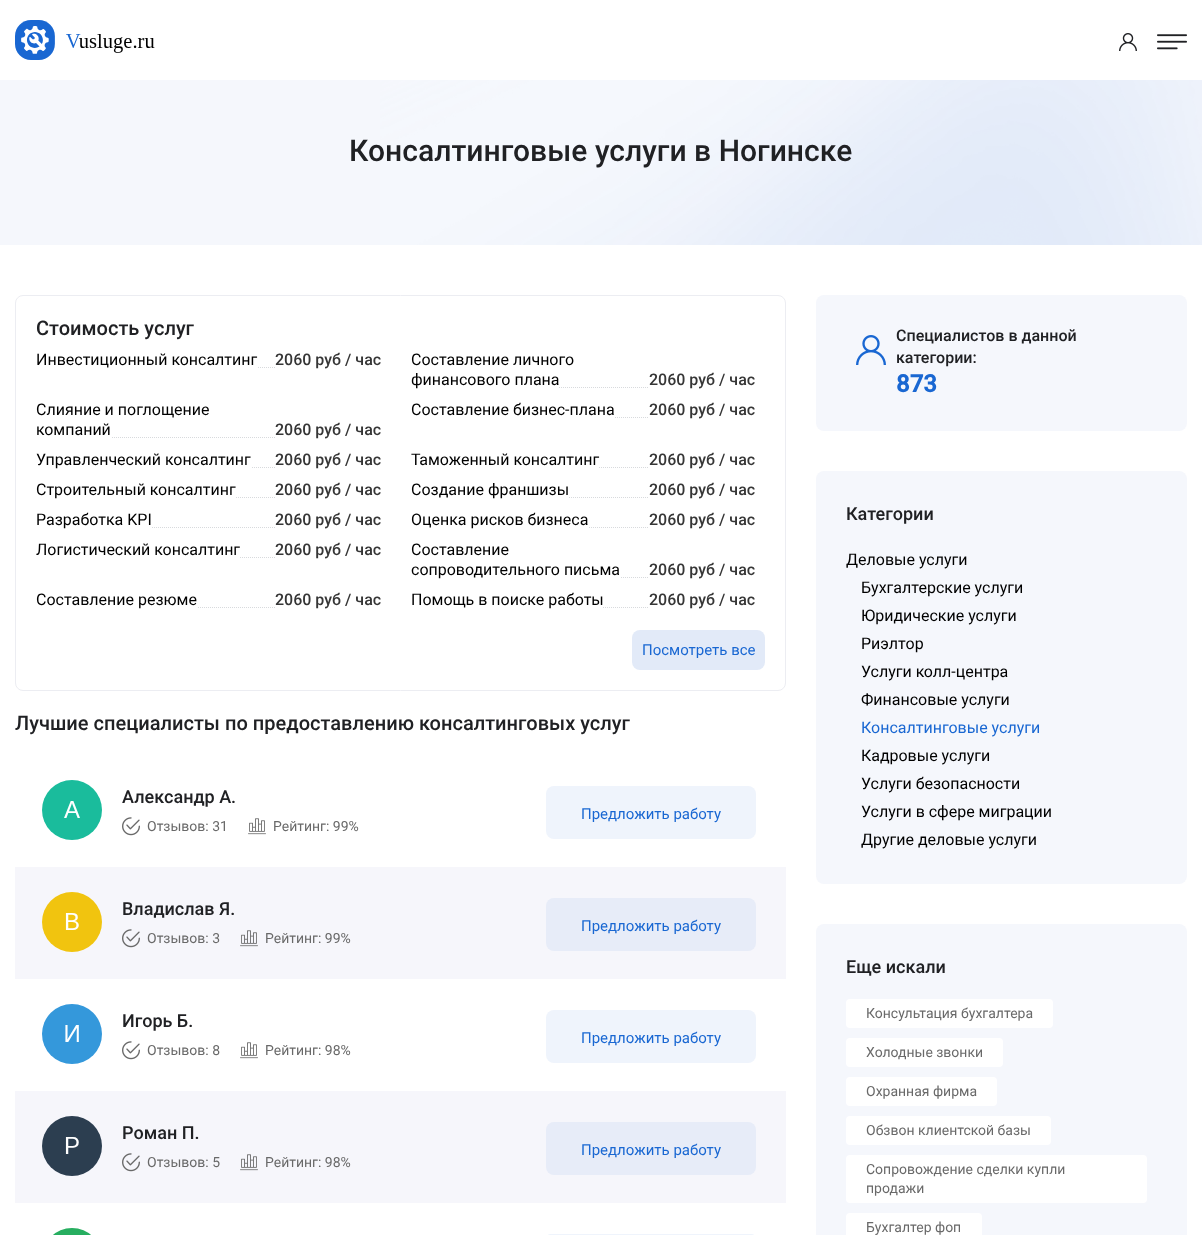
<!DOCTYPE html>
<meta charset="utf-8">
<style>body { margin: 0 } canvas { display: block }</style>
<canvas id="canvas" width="1202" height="1235"></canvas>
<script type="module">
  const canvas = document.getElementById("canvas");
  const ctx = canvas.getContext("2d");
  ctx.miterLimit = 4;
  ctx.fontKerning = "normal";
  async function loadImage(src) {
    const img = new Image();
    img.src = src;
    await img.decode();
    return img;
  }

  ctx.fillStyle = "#ffffff";
  ctx.fillRect(0, 0, 1202, 1235);
  ctx.drawImage(await loadImage("img1.png"), 15, 20, 140, 40);
  ctx.drawImage(await loadImage("img2.png"), 1119, 33, 18, 18);
  ctx.drawImage(await loadImage("img3.png"), 1157, 34, 30, 16);
  ctx.fillStyle = "#f5f7fc";
  ctx.fillRect(0, 80, 1202, 165);
  ctx.drawImage(await loadImage("img4.png"), 380, 80, 822, 165);
  ctx.font = "500 30px Roboto";
  ctx.fillStyle = "#202124";
  ctx.fillText("Консалтинговые услуги в Ногинске", 349, 161);
  ctx.beginPath();
  ctx.roundRect(15.5, 295.5, 770, 395, 7.5);
  ctx.strokeStyle = "#ecedf2";
  ctx.stroke();
  ctx.font = "500 20px Roboto";
  ctx.fillText("Стоимость услуг", 36, 335);
  ctx.beginPath();
  ctx.moveTo(36, 367.5);
  ctx.lineTo(381, 367.5);
  ctx.strokeStyle = "#d8dadd";
  ctx.setLineDash([1, 1]);
  ctx.stroke();
  ctx.fillStyle = "#ffffff";
  ctx.fillRect(36, 367, 221, 1);
  ctx.font = "16px Roboto";
  ctx.fillStyle = "#000000";
  ctx.fillText("Инвестиционный консалтинг", 36, 365);
  ctx.fillStyle = "#ffffff";
  ctx.fillRect(276, 367, 105, 1);
  ctx.font = "500 16px Roboto";
  ctx.fillStyle = "#363636";
  ctx.fillText("2060 руб / час", 275, 365);
  ctx.font = "16px Roboto";
  ctx.fillStyle = "#000000";
  ctx.fillText("Составление личного", 411, 365);
  ctx.beginPath();
  ctx.moveTo(411, 387.5);
  ctx.lineTo(755, 387.5);
  ctx.stroke();
  ctx.fillStyle = "#ffffff";
  ctx.fillRect(411, 387, 147, 1);
  ctx.fillStyle = "#000000";
  ctx.fillText("финансового плана", 411, 385);
  ctx.fillStyle = "#ffffff";
  ctx.fillRect(649, 387, 105, 1);
  ctx.font = "500 16px Roboto";
  ctx.fillStyle = "#363636";
  ctx.fillText("2060 руб / час", 649, 385);
  ctx.font = "16px Roboto";
  ctx.fillStyle = "#000000";
  ctx.fillText("Слияние и поглощение", 36, 415);
  ctx.fillText("компаний", 36, 435);
  ctx.beginPath();
  ctx.moveTo(36, 437.5);
  ctx.lineTo(381, 437.5);
  ctx.stroke();
  ctx.fillStyle = "#ffffff";
  ctx.fillRect(36, 437, 75, 1);
  ctx.fillRect(276, 437, 105, 1);
  ctx.font = "500 16px Roboto";
  ctx.fillStyle = "#363636";
  ctx.fillText("2060 руб / час", 275, 435);
  ctx.font = "16px Roboto";
  ctx.fillStyle = "#000000";
  ctx.fillText("Составление бизнес-плана", 411, 415);
  ctx.beginPath();
  ctx.moveTo(411, 417.5);
  ctx.lineTo(755, 417.5);
  ctx.stroke();
  ctx.fillStyle = "#ffffff";
  ctx.fillRect(411, 417, 203, 1);
  ctx.fillRect(649, 417, 105, 1);
  ctx.font = "500 16px Roboto";
  ctx.fillStyle = "#363636";
  ctx.fillText("2060 руб / час", 649, 415);
  ctx.beginPath();
  ctx.moveTo(36, 467.5);
  ctx.lineTo(381, 467.5);
  ctx.stroke();
  ctx.fillStyle = "#ffffff";
  ctx.fillRect(36, 467, 215, 1);
  ctx.font = "16px Roboto";
  ctx.fillStyle = "#000000";
  ctx.fillText("Управленческий консалтинг", 36, 465);
  ctx.fillStyle = "#ffffff";
  ctx.fillRect(276, 467, 105, 1);
  ctx.font = "500 16px Roboto";
  ctx.fillStyle = "#363636";
  ctx.fillText("2060 руб / час", 275, 465);
  ctx.font = "16px Roboto";
  ctx.fillStyle = "#000000";
  ctx.fillText("Таможенный консалтинг", 411, 465);
  ctx.beginPath();
  ctx.moveTo(411, 467.5);
  ctx.lineTo(755, 467.5);
  ctx.stroke();
  ctx.fillStyle = "#ffffff";
  ctx.fillRect(411, 467, 187, 1);
  ctx.fillRect(649, 467, 105, 1);
  ctx.font = "500 16px Roboto";
  ctx.fillStyle = "#363636";
  ctx.fillText("2060 руб / час", 649, 465);
  ctx.beginPath();
  ctx.moveTo(36, 497.5);
  ctx.lineTo(381, 497.5);
  ctx.stroke();
  ctx.fillStyle = "#ffffff";
  ctx.fillRect(36, 497, 199, 1);
  ctx.font = "16px Roboto";
  ctx.fillStyle = "#000000";
  ctx.fillText("Строительный консалтинг", 36, 495);
  ctx.fillStyle = "#ffffff";
  ctx.fillRect(276, 497, 105, 1);
  ctx.font = "500 16px Roboto";
  ctx.fillStyle = "#363636";
  ctx.fillText("2060 руб / час", 275, 495);
  ctx.beginPath();
  ctx.moveTo(411, 497.5);
  ctx.lineTo(755, 497.5);
  ctx.stroke();
  ctx.fillStyle = "#ffffff";
  ctx.fillRect(411, 497, 157, 1);
  ctx.font = "16px Roboto";
  ctx.fillStyle = "#000000";
  ctx.fillText("Создание франшизы", 411, 495);
  ctx.fillStyle = "#ffffff";
  ctx.fillRect(649, 497, 105, 1);
  ctx.font = "500 16px Roboto";
  ctx.fillStyle = "#363636";
  ctx.fillText("2060 руб / час", 649, 495);
  ctx.beginPath();
  ctx.moveTo(36, 527.5);
  ctx.lineTo(381, 527.5);
  ctx.stroke();
  ctx.fillStyle = "#ffffff";
  ctx.fillRect(36, 527, 115, 1);
  ctx.font = "16px Roboto";
  ctx.fillStyle = "#000000";
  ctx.fillText("Разработка KPI", 36, 525);
  ctx.fillStyle = "#ffffff";
  ctx.fillRect(276, 527, 105, 1);
  ctx.font = "500 16px Roboto";
  ctx.fillStyle = "#363636";
  ctx.fillText("2060 руб / час", 275, 525);
  ctx.beginPath();
  ctx.moveTo(411, 527.5);
  ctx.lineTo(755, 527.5);
  ctx.stroke();
  ctx.fillStyle = "#ffffff";
  ctx.fillRect(411, 527, 177, 1);
  ctx.font = "16px Roboto";
  ctx.fillStyle = "#000000";
  ctx.fillText("Оценка рисков бизнеса", 411, 525);
  ctx.fillStyle = "#ffffff";
  ctx.fillRect(649, 527, 105, 1);
  ctx.font = "500 16px Roboto";
  ctx.fillStyle = "#363636";
  ctx.fillText("2060 руб / час", 649, 525);
  ctx.font = "16px Roboto";
  ctx.fillStyle = "#000000";
  ctx.fillText("Логистический консалтинг", 36, 555);
  ctx.beginPath();
  ctx.moveTo(36, 557.5);
  ctx.lineTo(381, 557.5);
  ctx.stroke();
  ctx.fillStyle = "#ffffff";
  ctx.fillRect(36, 557, 203, 1);
  ctx.fillRect(276, 557, 105, 1);
  ctx.font = "500 16px Roboto";
  ctx.fillStyle = "#363636";
  ctx.fillText("2060 руб / час", 275, 555);
  ctx.font = "16px Roboto";
  ctx.fillStyle = "#000000";
  ctx.fillText("Составление", 411, 555);
  ctx.beginPath();
  ctx.moveTo(411, 577.5);
  ctx.lineTo(755, 577.5);
  ctx.stroke();
  ctx.fillStyle = "#ffffff";
  ctx.fillRect(411, 577, 209, 1);
  ctx.fillStyle = "#000000";
  ctx.fillText("сопроводительного письма", 411, 575);
  ctx.fillStyle = "#ffffff";
  ctx.fillRect(649, 577, 105, 1);
  ctx.font = "500 16px Roboto";
  ctx.fillStyle = "#363636";
  ctx.fillText("2060 руб / час", 649, 575);
  ctx.beginPath();
  ctx.moveTo(36, 607.5);
  ctx.lineTo(381, 607.5);
  ctx.stroke();
  ctx.fillStyle = "#ffffff";
  ctx.fillRect(36, 607, 161, 1);
  ctx.font = "16px Roboto";
  ctx.fillStyle = "#000000";
  ctx.fillText("Составление резюме", 36, 605);
  ctx.fillStyle = "#ffffff";
  ctx.fillRect(276, 607, 105, 1);
  ctx.font = "500 16px Roboto";
  ctx.fillStyle = "#363636";
  ctx.fillText("2060 руб / час", 275, 605);
  ctx.beginPath();
  ctx.moveTo(411, 607.5);
  ctx.lineTo(755, 607.5);
  ctx.stroke();
  ctx.fillStyle = "#ffffff";
  ctx.fillRect(411, 607, 191, 1);
  ctx.font = "16px Roboto";
  ctx.fillStyle = "#000000";
  ctx.fillText("Помощь в поиске работы", 411, 605);
  ctx.fillStyle = "#ffffff";
  ctx.fillRect(649, 607, 105, 1);
  ctx.font = "500 16px Roboto";
  ctx.fillStyle = "#363636";
  ctx.fillText("2060 руб / час", 649, 605);
  ctx.fillStyle = "#e2eaf8";
  ctx.beginPath();
  ctx.roundRect(632, 630, 133, 40, 8);
  ctx.fill();
  ctx.font = "15px Roboto";
  ctx.fillStyle = "#1967d2";
  ctx.fillText("Посмотреть все", 642, 655);
  ctx.font = "500 20px Roboto";
  ctx.fillStyle = "#202124";
  ctx.fillText("Лучшие специалисты по предоставлению консалтинговых услуг", 15, 730);
  ctx.drawImage(await loadImage("img5.png"), 42, 780, 60, 60);
  ctx.font = "500 18px Roboto";
  ctx.fillText("Александр А.", 122, 803);
  ctx.drawImage(await loadImage("img6.png"), 122, 817, 18, 19);
  ctx.font = "14px Roboto";
  ctx.fillStyle = "#696969";
  ctx.fillText("Отзывов: 31", 147, 831);
  ctx.drawImage(await loadImage("img7.png"), 248, 818, 18, 17);
  ctx.fillText("Рейтинг: 99%", 273, 831);
  ctx.fillStyle = "#eff4fc";
  ctx.beginPath();
  ctx.roundRect(546, 786, 210, 53, 8);
  ctx.fill();
  ctx.font = "15px Roboto";
  ctx.fillStyle = "#1967d2";
  ctx.fillText("Предложить работу", 581, 819);
  ctx.fillStyle = "#f6f6fb";
  ctx.fillRect(15, 867, 771, 112);
  ctx.drawImage(await loadImage("img8.png"), 42, 892, 60, 60);
  ctx.font = "500 18px Roboto";
  ctx.fillStyle = "#202124";
  ctx.fillText("Владислав Я.", 122, 915);
  ctx.drawImage(await loadImage("img9.png"), 122, 929, 18, 19);
  ctx.font = "14px Roboto";
  ctx.fillStyle = "#696969";
  ctx.fillText("Отзывов: 3", 147, 943);
  ctx.drawImage(await loadImage("img10.png"), 240, 930, 18, 17);
  ctx.fillText("Рейтинг: 99%", 265, 943);
  ctx.fillStyle = "#e7ecf8";
  ctx.beginPath();
  ctx.roundRect(546, 898, 210, 53, 8);
  ctx.fill();
  ctx.font = "15px Roboto";
  ctx.fillStyle = "#1967d2";
  ctx.fillText("Предложить работу", 581, 931);
  ctx.drawImage(await loadImage("img11.png"), 42, 1004, 60, 60);
  ctx.font = "500 18px Roboto";
  ctx.fillStyle = "#202124";
  ctx.fillText("Игорь Б.", 122, 1027);
  ctx.drawImage(await loadImage("img6.png"), 122, 1041, 18, 19);
  ctx.font = "14px Roboto";
  ctx.fillStyle = "#696969";
  ctx.fillText("Отзывов: 8", 147, 1055);
  ctx.drawImage(await loadImage("img7.png"), 240, 1042, 18, 17);
  ctx.fillText("Рейтинг: 98%", 265, 1055);
  ctx.fillStyle = "#eff4fc";
  ctx.beginPath();
  ctx.roundRect(546, 1010, 210, 53, 8);
  ctx.fill();
  ctx.font = "15px Roboto";
  ctx.fillStyle = "#1967d2";
  ctx.fillText("Предложить работу", 581, 1043);
  ctx.fillStyle = "#f6f6fb";
  ctx.fillRect(15, 1091, 771, 112);
  ctx.drawImage(await loadImage("img12.png"), 42, 1116, 60, 60);
  ctx.font = "500 18px Roboto";
  ctx.fillStyle = "#202124";
  ctx.fillText("Роман П.", 122, 1139);
  ctx.drawImage(await loadImage("img9.png"), 122, 1153, 18, 19);
  ctx.font = "14px Roboto";
  ctx.fillStyle = "#696969";
  ctx.fillText("Отзывов: 5", 147, 1167);
  ctx.drawImage(await loadImage("img10.png"), 240, 1154, 18, 17);
  ctx.fillText("Рейтинг: 98%", 265, 1167);
  ctx.fillStyle = "#e7ecf8";
  ctx.beginPath();
  ctx.roundRect(546, 1122, 210, 53, 8);
  ctx.fill();
  ctx.font = "15px Roboto";
  ctx.fillStyle = "#1967d2";
  ctx.fillText("Предложить работу", 581, 1155);
  ctx.drawImage(await loadImage("img13.png"), 53, 1228, 38, 7);
  ctx.fillStyle = "#eff4fc";
  ctx.beginPath();
  ctx.roundRect(546, 1234, 210, 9, 8);
  ctx.fill();
  ctx.fillStyle = "#f5f7fc";
  ctx.beginPath();
  ctx.roundRect(816, 295, 371, 136, 8);
  ctx.fill();
  ctx.drawImage(await loadImage("img14.png"), 856, 335, 30, 30);
  ctx.font = "500 16px Roboto";
  ctx.fillStyle = "#202124";
  ctx.fillText("Специалистов в данной", 896, 341);
  ctx.fillText("категории:", 896, 363);
  ctx.font = "bold 24px Roboto";
  ctx.fillStyle = "#1967d2";
  ctx.fillText("873", 896, 392);
  ctx.fillStyle = "#f5f7fc";
  ctx.beginPath();
  ctx.roundRect(816, 471, 371, 413, 8);
  ctx.fill();
  ctx.font = "500 18px Roboto";
  ctx.fillStyle = "#202124";
  ctx.fillText("Категории", 846, 520);
  ctx.font = "16px Roboto";
  ctx.fillStyle = "#000000";
  ctx.fillText("Деловые услуги", 846, 565);
  ctx.fillText("Бухгалтерские услуги", 861, 593);
  ctx.fillText("Юридические услуги", 861, 621);
  ctx.fillText("Риэлтор", 861, 649);
  ctx.fillText("Услуги колл-центра", 861, 677);
  ctx.fillText("Финансовые услуги", 861, 705);
  ctx.fillStyle = "#1967d2";
  ctx.fillText("Консалтинговые услуги", 861, 733);
  ctx.fillStyle = "#000000";
  ctx.fillText("Кадровые услуги", 861, 761);
  ctx.fillText("Услуги безопасности", 861, 789);
  ctx.fillText("Услуги в сфере миграции", 861, 817);
  ctx.fillText("Другие деловые услуги", 861, 845);
  ctx.fillStyle = "#f5f7fc";
  ctx.beginPath();
  ctx.roundRect(816, 924, 371, 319, 8);
  ctx.fill();
  ctx.font = "500 18px Roboto";
  ctx.fillStyle = "#202124";
  ctx.fillText("Еще искали", 846, 973);
  ctx.fillStyle = "#ffffff";
  ctx.beginPath();
  ctx.roundRect(846, 999, 207, 29, 4);
  ctx.fill();
  ctx.font = "14px Roboto";
  ctx.fillStyle = "#696969";
  ctx.fillText("Консультация бухгалтера", 866, 1018);
  ctx.fillStyle = "#ffffff";
  ctx.beginPath();
  ctx.roundRect(846, 1038, 157, 29, 4);
  ctx.fill();
  ctx.fillStyle = "#696969";
  ctx.fillText("Холодные звонки", 866, 1057);
  ctx.fillStyle = "#ffffff";
  ctx.beginPath();
  ctx.roundRect(846, 1077, 151, 29, 4);
  ctx.fill();
  ctx.fillStyle = "#696969";
  ctx.fillText("Охранная фирма", 866, 1096);
  ctx.fillStyle = "#ffffff";
  ctx.beginPath();
  ctx.roundRect(846, 1116, 205, 29, 4);
  ctx.fill();
  ctx.fillStyle = "#696969";
  ctx.fillText("Обзвон клиентской базы", 866, 1135);
  ctx.fillStyle = "#ffffff";
  ctx.beginPath();
  ctx.roundRect(846, 1155, 301, 48, 4);
  ctx.fill();
  ctx.fillStyle = "#696969";
  ctx.fillText("Сопровождение сделки купли", 866, 1174);
  ctx.fillText("продажи", 866, 1193);
  ctx.fillStyle = "#ffffff";
  ctx.beginPath();
  ctx.roundRect(846, 1213, 136, 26, 4);
  ctx.fill();
  ctx.fillStyle = "#696969";
  ctx.fillText("Бухгалтер фоп", 866, 1232);
</script>
